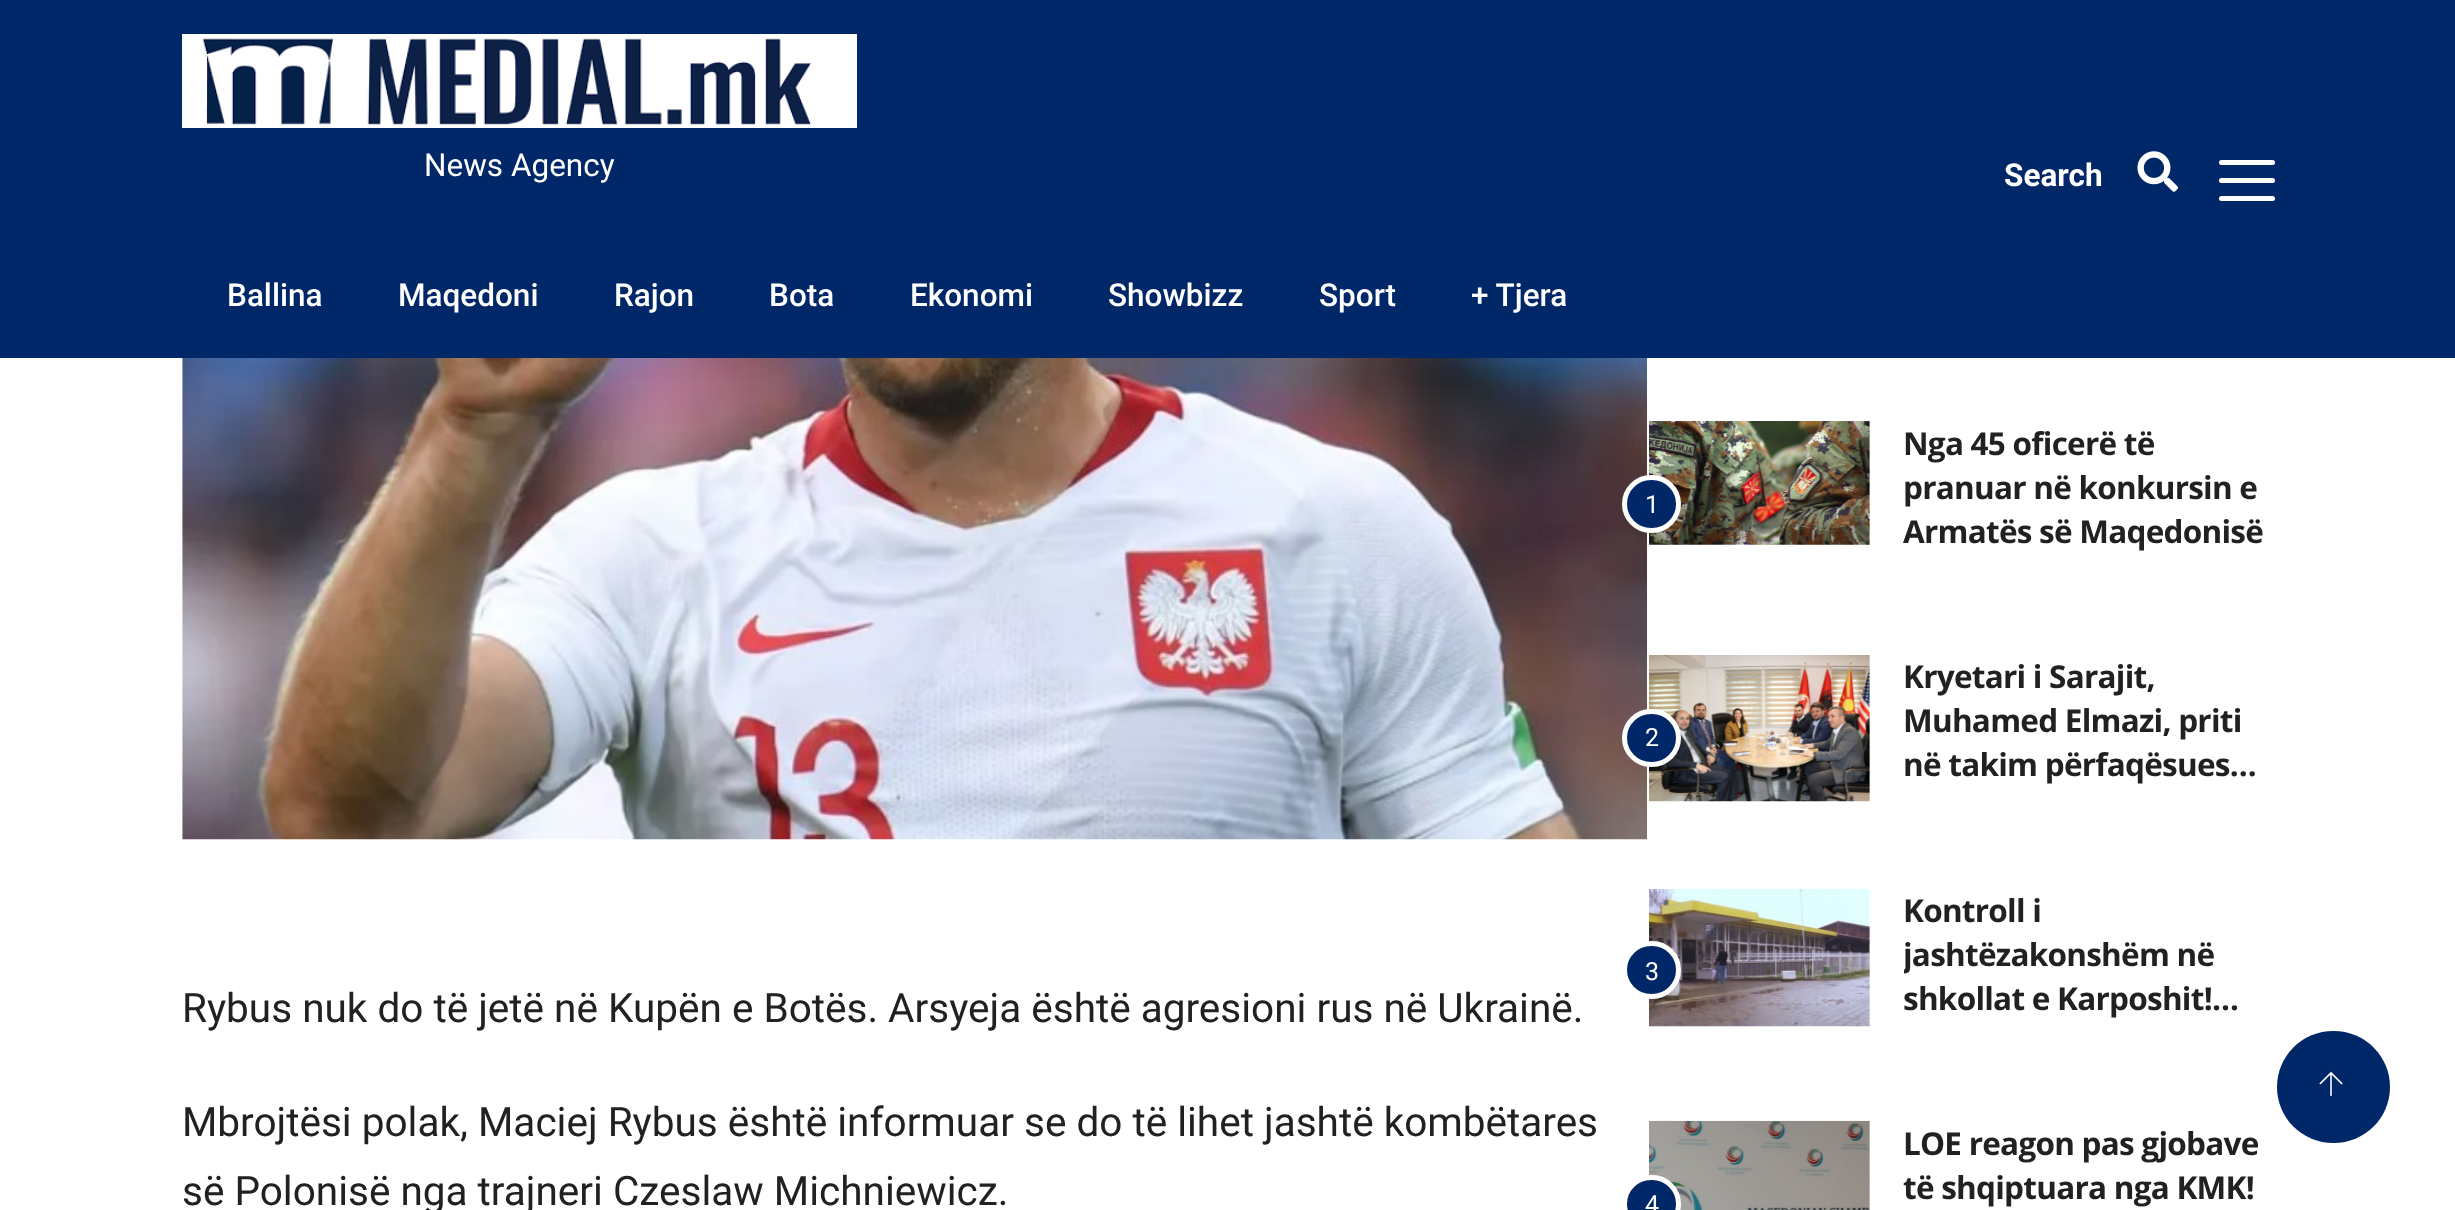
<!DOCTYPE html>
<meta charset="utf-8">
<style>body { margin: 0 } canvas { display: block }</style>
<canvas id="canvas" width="2455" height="1210"></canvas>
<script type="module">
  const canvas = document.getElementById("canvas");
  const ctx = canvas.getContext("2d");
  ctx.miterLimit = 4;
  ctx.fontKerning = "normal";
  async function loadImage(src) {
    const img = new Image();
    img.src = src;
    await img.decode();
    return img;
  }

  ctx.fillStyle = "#ffffff";
  ctx.fillRect(0, 0, 2455, 1210);
  ctx.fillStyle = "#002868";
  ctx.fillRect(0, 0, 2455, 358);
  ctx.drawImage(await loadImage("img1.png"), 182, 34, 675, 94);
  ctx.font = "31.5px Roboto";
  ctx.fillStyle = "#ffffff";
  ctx.fillText("News Agency", 424, 176);
  ctx.font = "500 31.5px Roboto";
  ctx.fillText("Ballina", 227, 306);
  ctx.fillText("Maqedoni", 398, 306);
  ctx.fillText("Rajon", 614, 306);
  ctx.fillText("Bota", 769, 306);
  ctx.fillText("Ekonomi", 910, 306);
  ctx.fillText("Showbizz", 1108, 306);
  ctx.fillText("Sport", 1319, 306);
  ctx.fillText("+ Tjera", 1471, 306);
  ctx.font = "bold 31.5px Roboto";
  ctx.fillText("Search", 2004, 186);
  ctx.drawImage(await loadImage("img2.png"), 2137, 151, 41, 41);
  ctx.beginPath();
  ctx.roundRect(2219, 160, 56, 5, 2.5);
  ctx.fill();
  ctx.beginPath();
  ctx.roundRect(2219, 178, 56, 5, 2.5);
  ctx.fill();
  ctx.beginPath();
  ctx.roundRect(2219, 196, 56, 5, 2.5);
  ctx.fill();
  ctx.drawImage(await loadImage("img3.png"), 182, 358, 1465, 482);
  ctx.font = "40.5px Roboto";
  ctx.fillStyle = "#212121";
  ctx.fillText("Rybus nuk do të jetë në Kupën e Botës. Arsyeja është agresioni rus në Ukrainë.", 182, 1022);
  ctx.fillText("Mbrojtësi polak, Maciej Rybus është informuar se do të lihet jashtë kombëtares", 182, 1136);
  ctx.fillText("së Polonisë nga trajneri Czeslaw Michniewicz.", 182, 1205);
  ctx.drawImage(await loadImage("img4.png"), 1649, 421, 221, 124);
  ctx.fillStyle = "#002868";
  ctx.beginPath();
  ctx.roundRect(1624.5, 477.5, 54, 53, 26.5);
  ctx.fill();
  ctx.strokeStyle = "#ffffff";
  ctx.lineWidth = 5;
  ctx.stroke();
  ctx.font = "25px Roboto";
  ctx.fillStyle = "#ffffff";
  ctx.fillText("1", 1645, 513);
  ctx.letterSpacing = "-0.75px";
  ctx.font = "bold 31.5px Open Sans";
  ctx.fillStyle = "#212121";
  ctx.fillText("Nga 45 oficerë të", 1903, 455);
  ctx.fillText("pranuar në konkursin e", 1903, 499);
  ctx.fillText("Armatës së Maqedonisë", 1903, 543);
  ctx.drawImage(await loadImage("img5.png"), 1649, 655, 221, 147);
  ctx.fillStyle = "#002868";
  ctx.beginPath();
  ctx.roundRect(1624.5, 711.5, 54, 53, 26.5);
  ctx.fill();
  ctx.stroke();
  ctx.letterSpacing = "0px";
  ctx.font = "25px Roboto";
  ctx.fillStyle = "#ffffff";
  ctx.fillText("2", 1645, 746);
  ctx.letterSpacing = "-0.75px";
  ctx.font = "bold 31.5px Open Sans";
  ctx.fillStyle = "#212121";
  ctx.fillText("Kryetari i Sarajit,", 1903, 688);
  ctx.fillText("Muhamed Elmazi, priti", 1903, 732);
  ctx.fillText("në takim përfaqësues…", 1903, 776);
  ctx.drawImage(await loadImage("img6.png"), 1649, 889, 221, 138);
  ctx.fillStyle = "#002868";
  ctx.beginPath();
  ctx.roundRect(1624.5, 943.5, 54, 53, 26.5);
  ctx.fill();
  ctx.stroke();
  ctx.letterSpacing = "0px";
  ctx.font = "25px Roboto";
  ctx.fillStyle = "#ffffff";
  ctx.fillText("3", 1645, 980);
  ctx.letterSpacing = "-0.75px";
  ctx.font = "bold 31.5px Open Sans";
  ctx.fillStyle = "#212121";
  ctx.fillText("Kontroll i", 1903, 922);
  ctx.save();
  ctx.beginPath();
  ctx.rect(1904, 889, 369, 130);
  ctx.clip();
  ctx.fillText("jashtëzakonshëm në", 1903, 966);
  ctx.restore();
  ctx.fillText("shkollat e Karposhit!…", 1903, 1010);
  ctx.drawImage(await loadImage("img7.png"), 1649, 1120, 221, 90);
  ctx.fillStyle = "#002868";
  ctx.beginPath();
  ctx.roundRect(1624.5, 1177.5, 54, 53, 26.5);
  ctx.fill();
  ctx.stroke();
  ctx.letterSpacing = "0px";
  ctx.font = "25px Roboto";
  ctx.fillStyle = "#ffffff";
  ctx.fillText("4", 1645, 1213);
  ctx.letterSpacing = "-0.75px";
  ctx.font = "bold 31.5px Open Sans";
  ctx.fillStyle = "#212121";
  ctx.fillText("LOE reagon pas gjobave", 1903, 1155);
  ctx.fillText("të shqiptuara nga KMK!", 1903, 1199);
  ctx.fillStyle = "#002868";
  ctx.beginPath();
  ctx.roundRect(2277, 1031, 113, 112, 56);
  ctx.fill();
  ctx.drawImage(await loadImage("img8.png"), 2319, 1071, 24, 25);
</script>
